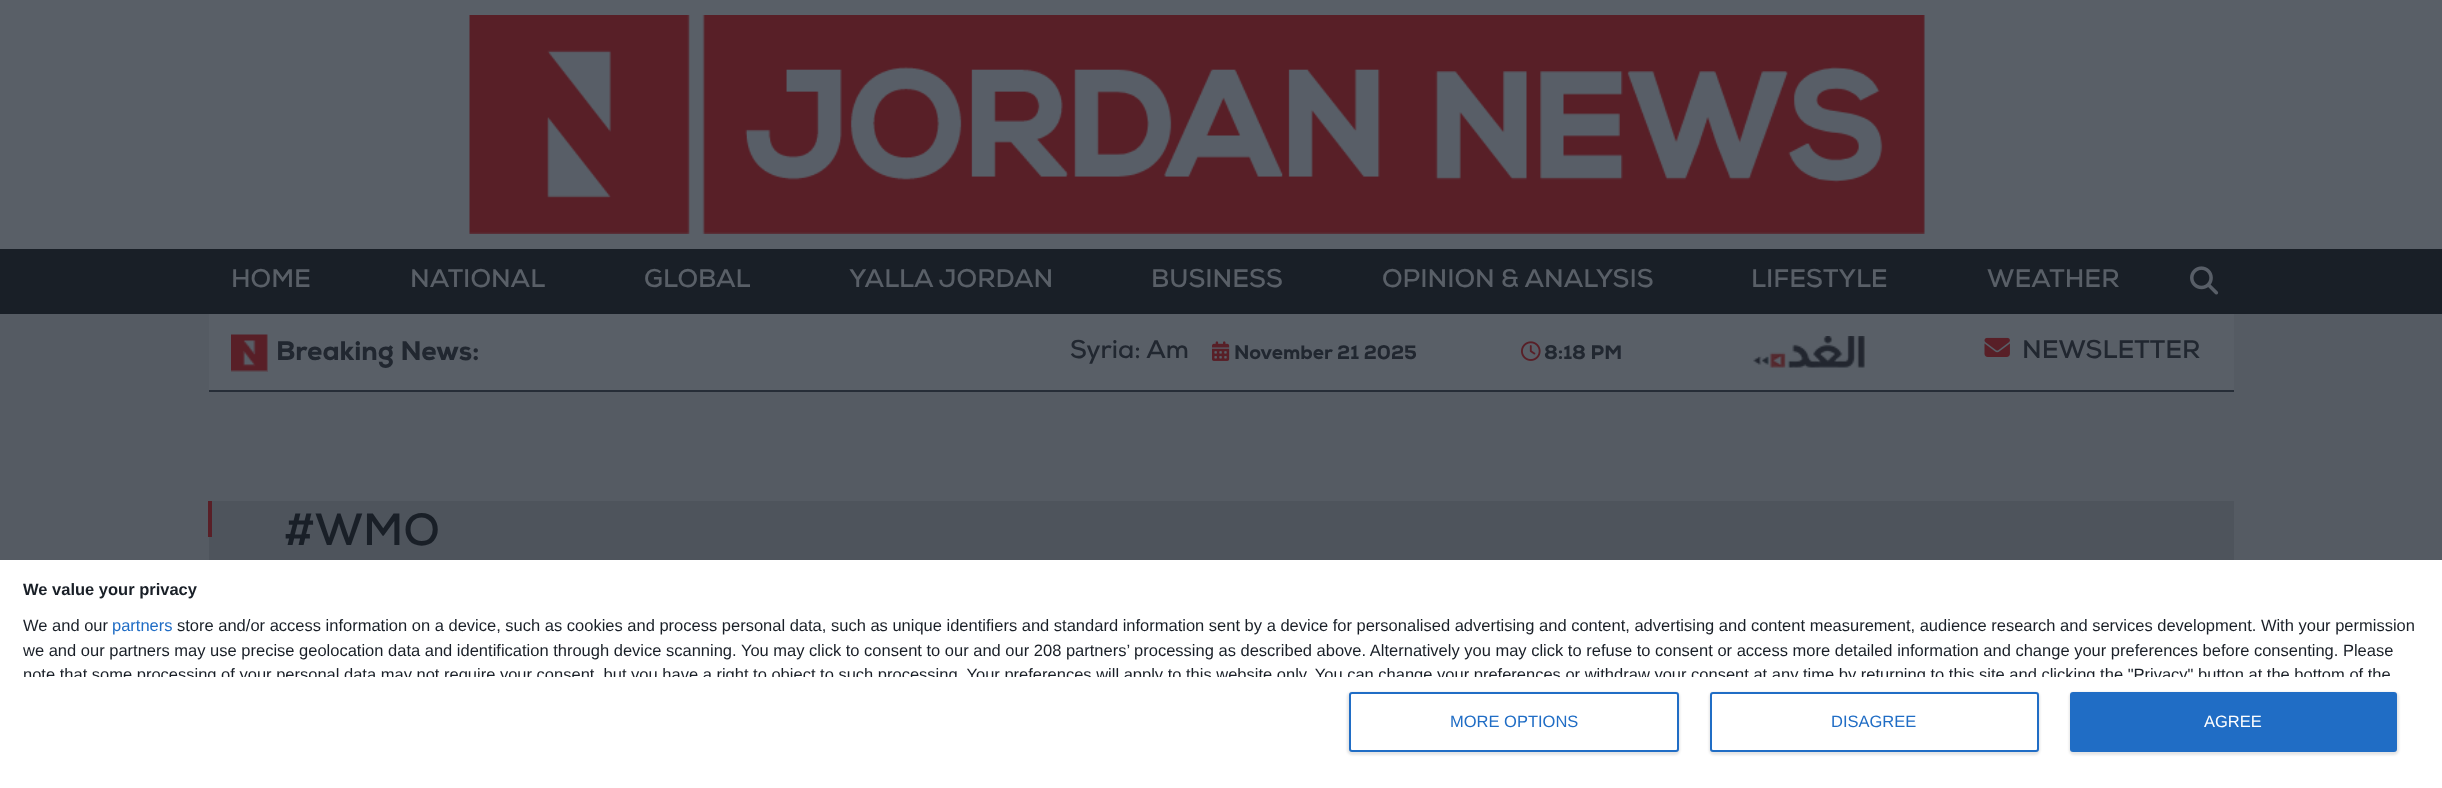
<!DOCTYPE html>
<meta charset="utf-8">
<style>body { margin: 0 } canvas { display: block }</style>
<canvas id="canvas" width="2442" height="788"></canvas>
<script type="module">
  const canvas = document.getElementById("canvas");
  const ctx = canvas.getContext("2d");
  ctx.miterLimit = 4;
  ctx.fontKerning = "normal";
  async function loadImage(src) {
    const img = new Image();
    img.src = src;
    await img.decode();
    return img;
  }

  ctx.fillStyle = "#555b63";
  ctx.fillRect(0, 0, 2442, 788);
  ctx.fillStyle = "#595f67";
  ctx.fillRect(0, 0, 2442, 249);
  ctx.drawImage(await loadImage("img1.png"), 469, 15, 1456, 219);
  ctx.fillStyle = "#191f27";
  ctx.fillRect(0, 249, 2442, 65);
  ctx.font = "bold 25.5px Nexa";
  ctx.fillStyle = "#595f67";
  ctx.fillText("HOME", 231, 287);
  ctx.fillText("NATIONAL", 410, 287);
  ctx.fillText("GLOBAL", 644, 287);
  ctx.fillText("YALLA JORDAN", 849, 287);
  ctx.fillText("BUSINESS", 1151, 287);
  ctx.fillText("OPINION & ANALYSIS", 1382, 287);
  ctx.fillText("LIFESTYLE", 1751, 287);
  ctx.fillText("WEATHER", 1987, 287);
  ctx.drawImage(await loadImage("img2.png"), 2190, 266, 29, 29);
  ctx.fillRect(209, 314, 2025, 76);
  ctx.fillStyle = "#262d37";
  ctx.fillRect(209, 390, 2025, 2);
  ctx.drawImage(await loadImage("img3.png"), 231, 334, 37, 38);
  ctx.font = "900 26.75px Nexa";
  ctx.fillStyle = "#212730";
  ctx.fillText("Breaking News:", 276, 360);
  ctx.font = "bold 25.5px Nexa";
  ctx.fillText("Syria: Am", 1070, 358);
  ctx.drawImage(await loadImage("img4.png"), 1212, 341, 18, 20);
  ctx.font = "900 19.5px Nexa";
  ctx.fillText("November 21 2025", 1234, 359);
  ctx.drawImage(await loadImage("img5.png"), 1521, 341, 20, 20);
  ctx.fillText("8:18 PM", 1544, 359);
  ctx.drawImage(await loadImage("img6.png"), 1753, 336, 112, 32);
  ctx.drawImage(await loadImage("img7.png"), 1984, 337, 26, 20);
  ctx.font = "bold 25.5px Nexa";
  ctx.fillText("NEWSLETTER", 2022, 358);
  ctx.fillStyle = "#4e545c";
  ctx.fillRect(209, 501, 2025, 59);
  ctx.fillStyle = "#591f27";
  ctx.fillRect(208, 501, 4, 36);
  ctx.font = "bold 45px Nexa";
  ctx.fillStyle = "#191f27";
  ctx.fillText("#WMO", 284, 545);
  ctx.fillStyle = "#ffffff";
  ctx.fillRect(0, 560, 2442, 228);
  ctx.font = "bold 16.5px Liberation Sans";
  ctx.fillStyle = "#191f27";
  ctx.fillText("We value your privacy", 23, 595);
  ctx.font = "16.5px Liberation Sans";
  ctx.fillText("We and our", 23, 631);
  ctx.fillStyle = "#206dc5";
  ctx.fillText("partners", 112, 631);
  ctx.fillStyle = "#191f27";
  ctx.fillText("store and/or access information on a device, such as cookies and process personal data, such as unique identifiers and standard information sent by a device for personalised advertising and content, advertising and content measurement, audience research and services development. With your permission", 177, 631);
  ctx.fillText("we and our partners may use precise geolocation data and identification through device scanning. You may click to consent to our and our 208 partners’ processing as described above. Alternatively you may click to refuse to consent or access more detailed information and change your preferences before consenting. Please", 23, 656);
  ctx.save();
  ctx.beginPath();
  ctx.rect(23, 567, 2397, 110);
  ctx.clip();
  ctx.fillText("note that some processing of your personal data may not require your consent, but you have a right to object to such processing. Your preferences will apply to this website only. You can change your preferences or withdraw your consent at any time by returning to this site and clicking the \"Privacy\" button at the bottom of the", 23, 680);
  ctx.restore();
  ctx.fillStyle = "rgba(0, 0, 0, 0.1)";
  ctx.filter = "blur(1px)";
  ctx.beginPath();
  ctx.roundRect(1347, 692, 333, 63, 5);
  ctx.fill();
  ctx.filter = "none";
  ctx.fillStyle = "#ffffff";
  ctx.beginPath();
  ctx.roundRect(1350, 693, 328, 58, 2);
  ctx.fill();
  ctx.strokeStyle = "#206dc5";
  ctx.lineWidth = 2;
  ctx.stroke();
  ctx.fillStyle = "#206dc5";
  ctx.fillText("MORE OPTIONS", 1450, 727);
  ctx.fillStyle = "rgba(0, 0, 0, 0.1)";
  ctx.filter = "blur(1px)";
  ctx.beginPath();
  ctx.roundRect(1709, 692, 331, 63, 5);
  ctx.fill();
  ctx.filter = "none";
  ctx.fillStyle = "#ffffff";
  ctx.beginPath();
  ctx.roundRect(1711, 693, 327, 58, 2);
  ctx.fill();
  ctx.stroke();
  ctx.fillStyle = "#206dc5";
  ctx.fillText("DISAGREE", 1831, 727);
  ctx.fillStyle = "rgba(0, 0, 0, 0.1)";
  ctx.filter = "blur(1px)";
  ctx.beginPath();
  ctx.roundRect(2069, 692, 330, 63, 5);
  ctx.fill();
  ctx.filter = "none";
  ctx.fillStyle = "#206dc5";
  ctx.beginPath();
  ctx.roundRect(2070, 692, 327, 60, 3);
  ctx.fill();
  ctx.fillStyle = "#ffffff";
  ctx.fillText("AGREE", 2204, 727);
</script>
